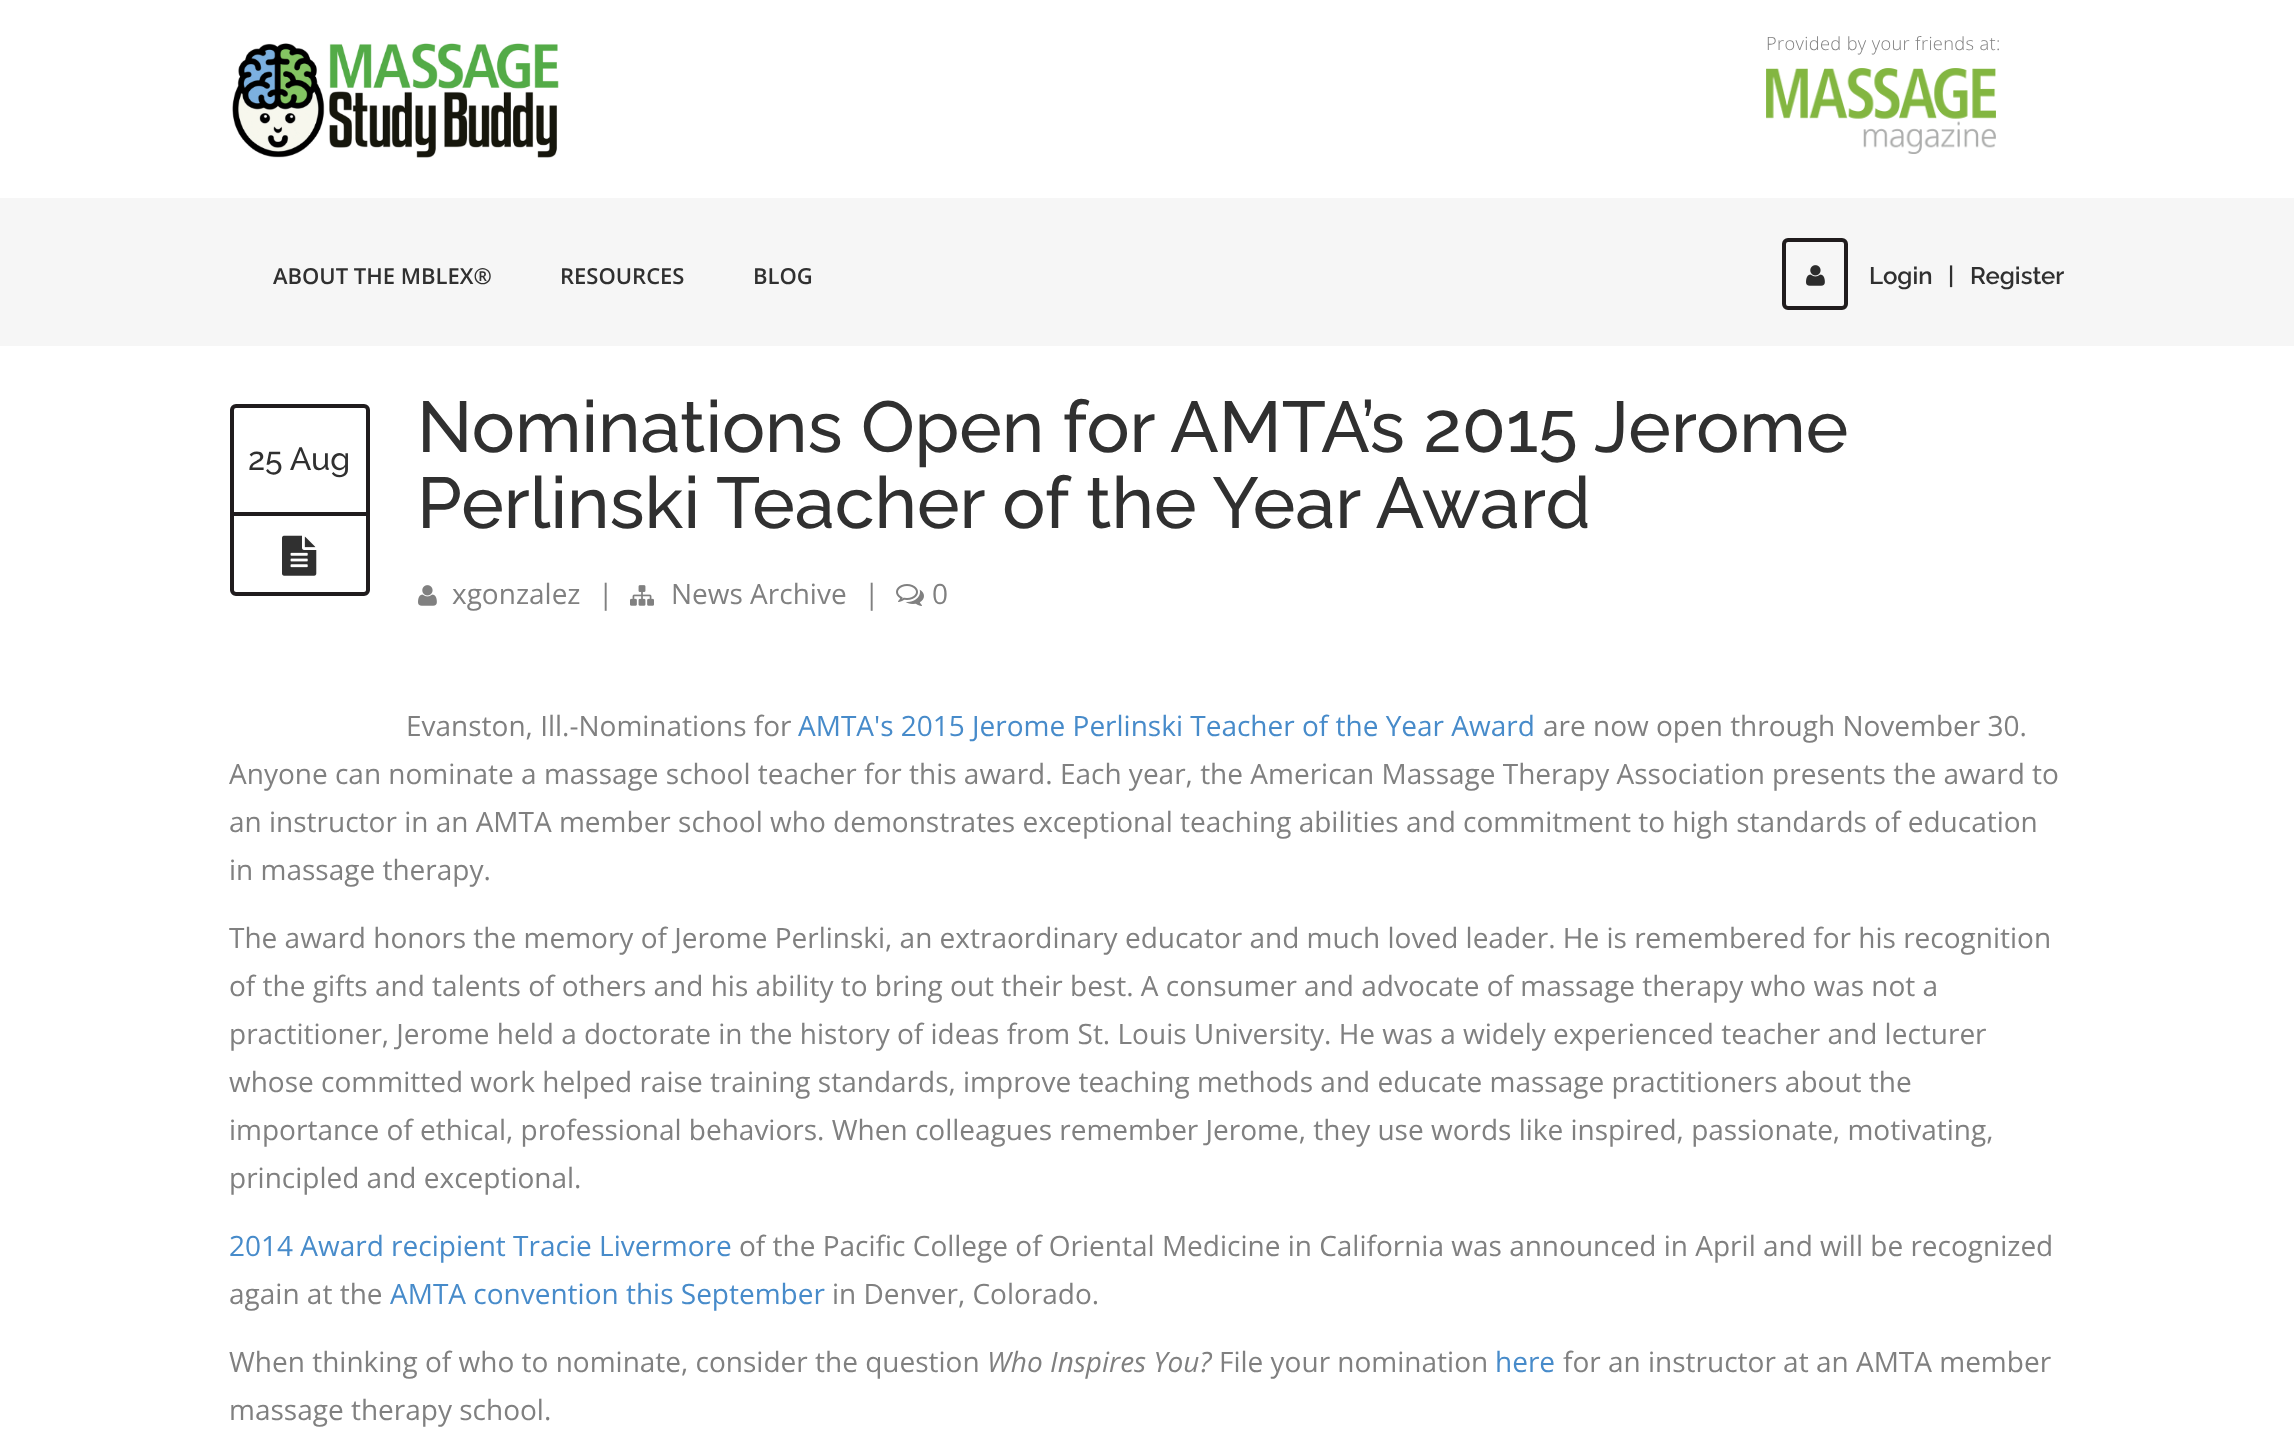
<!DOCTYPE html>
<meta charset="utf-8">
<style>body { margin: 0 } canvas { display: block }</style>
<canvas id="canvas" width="2294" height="1431"></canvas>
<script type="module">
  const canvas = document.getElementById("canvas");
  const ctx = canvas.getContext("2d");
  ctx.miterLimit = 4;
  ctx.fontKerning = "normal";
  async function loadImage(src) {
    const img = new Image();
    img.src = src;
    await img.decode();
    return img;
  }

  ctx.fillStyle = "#ffffff";
  ctx.fillRect(0, 0, 2294, 1431);
  ctx.letterSpacing = "0.35px";
  ctx.font = "300 18.25px Open Sans";
  ctx.fillStyle = "#808080";
  ctx.fillText("Provided by your friends at:", 1766, 50);
  ctx.drawImage(await loadImage("img1.png"), 1766, 68, 230, 86);
  ctx.drawImage(await loadImage("img2.png"), 232, 43, 327, 115);
  ctx.fillStyle = "#f6f6f6";
  ctx.fillRect(0, 198, 2294, 148);
  ctx.letterSpacing = "0px";
  ctx.font = "600 22px Open Sans";
  ctx.fillStyle = "#303030";
  ctx.fillText("ABOUT THE MBLEX®", 273, 284);
  ctx.fillText("RESOURCES", 560, 284);
  ctx.fillText("BLOG", 753, 284);
  ctx.beginPath();
  ctx.roundRect(1784, 240, 62, 68, 4);
  ctx.strokeStyle = "#201c1d";
  ctx.lineWidth = 4;
  ctx.stroke();
  ctx.drawImage(await loadImage("img3.png"), 1806, 265, 19, 21);
  ctx.font = "600 24px Raleway";
  ctx.fillText("Login", 1869, 284);
  ctx.fillText("|", 1948, 284);
  ctx.fillText("Register", 1970, 284);
  ctx.beginPath();
  ctx.roundRect(232, 406, 136, 108, [4, 4, 0, 0]);
  ctx.stroke();
  ctx.font = "500 32px Raleway";
  ctx.fillText("25 Aug", 248, 470);
  ctx.fillStyle = "#201c1d";
  ctx.beginPath();
  ctx.moveTo(230, 516);
  ctx.lineTo(370, 516);
  ctx.lineTo(370, 590);
  ctx.bezierCurveTo(370, 593, 367, 596, 364, 596);
  ctx.lineTo(236, 596);
  ctx.bezierCurveTo(233, 596, 230, 593, 230, 590);
  ctx.closePath();
  ctx.moveTo(234, 516);
  ctx.lineTo(366, 516);
  ctx.lineTo(366, 590);
  ctx.bezierCurveTo(366, 591, 365, 592, 364, 592);
  ctx.lineTo(236, 592);
  ctx.bezierCurveTo(235, 592, 234, 591, 234, 590);
  ctx.closePath();
  ctx.fill("evenodd");
  ctx.drawImage(await loadImage("img4.png"), 282, 535, 35, 41);
  ctx.font = "500 72px Raleway";
  ctx.fillStyle = "#303030";
  ctx.fillText("Nominations Open for AMTA’s 2015 Jerome", 417, 452);
  ctx.fillText("Perlinski Teacher of the Year Award", 417, 528);
  ctx.drawImage(await loadImage("img5.png"), 418, 585, 19, 21);
  ctx.font = "28px Open Sans";
  ctx.fillStyle = "#808080";
  ctx.fillText("xgonzalez", 452, 604);
  ctx.fillText("|", 598, 604);
  ctx.drawImage(await loadImage("img6.png"), 630, 585, 24, 21);
  ctx.fillText("News Archive", 671, 604);
  ctx.fillText("|", 864, 604);
  ctx.drawImage(await loadImage("img7.png"), 896, 584, 28, 22);
  ctx.fillText("0", 932, 604);
  ctx.fillText("Evanston, Ill.-Nominations for", 406, 736);
  ctx.fillStyle = "#478bca";
  ctx.fillText("AMTA's 2015 Jerome Perlinski Teacher of the Year Award", 798, 736);
  ctx.fillStyle = "#808080";
  ctx.fillText("are now open through November 30.", 1543, 736);
  ctx.fillText("Anyone can nominate a massage school teacher for this award. Each year, the American Massage Therapy Association presents the award to", 229, 784);
  ctx.fillText("an instructor in an AMTA member school who demonstrates exceptional teaching abilities and commitment to high standards of education", 229, 832);
  ctx.fillText("in massage therapy.", 229, 880);
  ctx.fillText("The award honors the memory of Jerome Perlinski, an extraordinary educator and much loved leader. He is remembered for his recognition", 229, 948);
  ctx.fillText("of the gifts and talents of others and his ability to bring out their best. A consumer and advocate of massage therapy who was not a", 229, 996);
  ctx.fillText("practitioner, Jerome held a doctorate in the history of ideas from St. Louis University. He was a widely experienced teacher and lecturer", 229, 1044);
  ctx.fillText("whose committed work helped raise training standards, improve teaching methods and educate massage practitioners about the", 229, 1092);
  ctx.fillText("importance of ethical, professional behaviors. When colleagues remember Jerome, they use words like inspired, passionate, motivating,", 229, 1140);
  ctx.fillText("principled and exceptional.", 229, 1188);
  ctx.fillStyle = "#478bca";
  ctx.fillText("2014 Award recipient Tracie Livermore", 229, 1256);
  ctx.fillStyle = "#808080";
  ctx.fillText("of the Pacific College of Oriental Medicine in California was announced in April and will be recognized", 739, 1256);
  ctx.fillText("again at the", 229, 1304);
  ctx.fillStyle = "#478bca";
  ctx.fillText("AMTA convention this September", 390, 1304);
  ctx.fillStyle = "#808080";
  ctx.fillText("in Denver, Colorado.", 832, 1304);
  ctx.fillText("When thinking of who to nominate, consider the question", 229, 1372);
  ctx.font = "italic 28px Open Sans";
  ctx.fillText("Who Inspires You?", 987, 1372);
  ctx.font = "28px Open Sans";
  ctx.fillText("File your nomination", 1219, 1372);
  ctx.fillStyle = "#478bca";
  ctx.fillText("here", 1495, 1372);
  ctx.fillStyle = "#808080";
  ctx.fillText("for an instructor at an AMTA member", 1563, 1372);
  ctx.fillText("massage therapy school.", 229, 1420);
</script>
